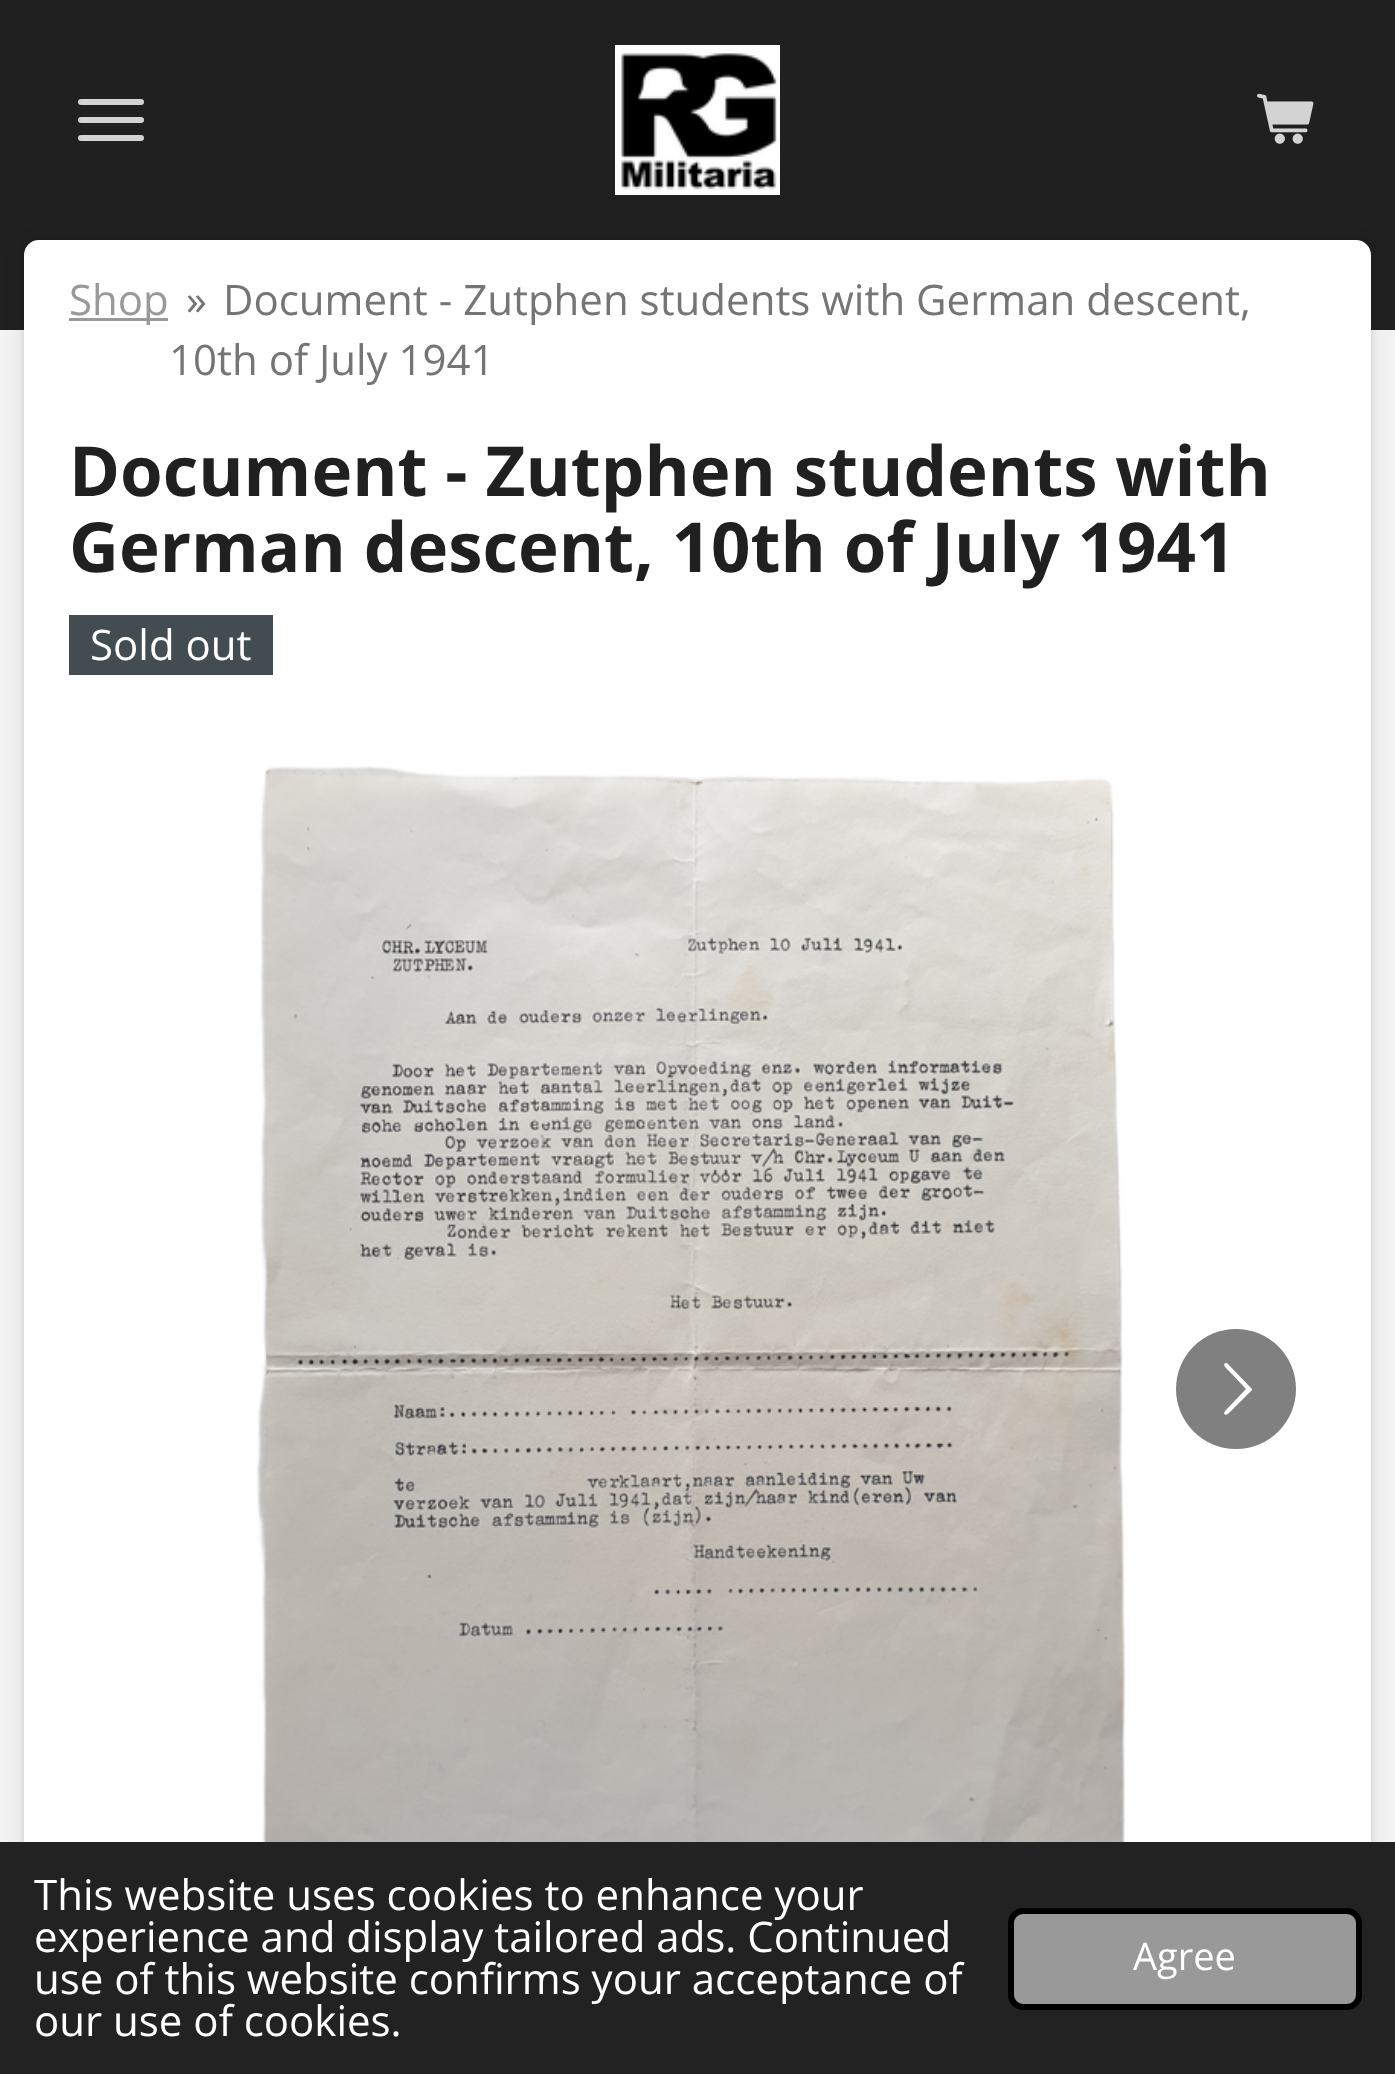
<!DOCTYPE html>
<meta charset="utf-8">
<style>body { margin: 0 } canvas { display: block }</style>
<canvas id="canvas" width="1395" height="2074"></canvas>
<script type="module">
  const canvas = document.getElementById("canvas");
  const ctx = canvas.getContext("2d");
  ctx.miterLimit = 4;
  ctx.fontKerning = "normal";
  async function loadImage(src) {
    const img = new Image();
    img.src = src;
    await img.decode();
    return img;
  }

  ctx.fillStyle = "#f4f3f3";
  ctx.fillRect(0, 0, 1395, 2074);
  ctx.fillStyle = "#202020";
  ctx.fillRect(0, 0, 1395, 330);
  ctx.fillStyle = "#d3d3d3";
  ctx.beginPath();
  ctx.roundRect(78, 117, 66, 6, 3);
  ctx.fill();
  ctx.beginPath();
  ctx.roundRect(78, 99, 66, 6, 3);
  ctx.fill();
  ctx.beginPath();
  ctx.roundRect(78, 135, 66, 6, 3);
  ctx.fill();
  ctx.drawImage(await loadImage("img1.png"), 615, 45, 165, 150);
  ctx.drawImage(await loadImage("img2.png"), 1257, 93, 57, 51);
  ctx.fillStyle = "rgba(0, 0, 0, 0.1)";
  ctx.filter = "blur(3px)";
  ctx.beginPath();
  ctx.roundRect(24, 240, 1347, 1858, 15);
  ctx.fill();
  ctx.filter = "none";
  ctx.fillStyle = "rgba(0, 0, 0, 0.07)";
  ctx.filter = "blur(12px)";
  ctx.beginPath();
  ctx.roundRect(24, 246, 1347, 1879, 15);
  ctx.fill();
  ctx.filter = "none";
  ctx.fillStyle = "#ffffff";
  ctx.beginPath();
  ctx.roundRect(24, 240, 1347, 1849, 15);
  ctx.fill();
  ctx.fillStyle = "#999999";
  ctx.fillRect(69, 318, 99, 3);
  ctx.font = "42px Open Sans";
  ctx.fillText("Shop", 69, 315);
  ctx.fillStyle = "#757575";
  ctx.fillText("»", 186, 315);
  ctx.fillText("Document - Zutphen students with German descent,", 223, 315);
  ctx.fillText("10th of July 1941", 169, 375);
  ctx.font = "bold 69px Open Sans";
  ctx.fillStyle = "#202020";
  ctx.fillText("Document - Zutphen students with", 69, 496);
  ctx.fillText("German descent, 10th of July 1941", 69, 572);
  ctx.fillStyle = "#424c51";
  ctx.fillRect(69, 615, 204, 60);
  ctx.font = "42px Open Sans";
  ctx.fillStyle = "#ffffff";
  ctx.fillText("Sold out", 90, 660);
  ctx.drawImage(await loadImage("img3.png"), 256, 766, 875, 1076);
  ctx.fillStyle = "#808080";
  ctx.beginPath();
  ctx.arc(1236, 1389, 60, 0, Math.PI * 2);
  ctx.fill();
  ctx.fillStyle = "#ffffff";
  ctx.beginPath();
  ctx.moveTo(1225, 1411);
  ctx.lineTo(1246, 1389);
  ctx.lineTo(1228, 1370);
  ctx.bezierCurveTo(1228, 1370, 1221, 1364, 1226, 1363);
  ctx.lineTo(1227, 1363);
  ctx.lineTo(1252, 1389);
  ctx.lineTo(1252, 1390);
  ctx.lineTo(1232, 1410);
  ctx.bezierCurveTo(1231, 1411, 1225, 1418, 1224, 1413);
  ctx.closePath();
  ctx.fill();
  ctx.fillStyle = "#222222";
  ctx.fillRect(0, 1842, 1395, 232);
  ctx.fillStyle = "#ffffff";
  ctx.fillText("This website uses cookies to enhance your", 34, 1910);
  ctx.fillText("experience and display tailored ads. Continued", 34, 1952);
  ctx.fillText("use of this website confirms your acceptance of", 34, 1994);
  ctx.fillText("our use of cookies.", 34, 2036);
  ctx.fillStyle = "#999999";
  ctx.beginPath();
  ctx.roundRect(1011, 1911, 348, 96, 12);
  ctx.fill();
  ctx.strokeStyle = "#000000";
  ctx.lineWidth = 6;
  ctx.stroke();
  ctx.font = "38px Open Sans";
  ctx.fillStyle = "#ffffff";
  ctx.fillText("Agree", 1133, 1970);
</script>
